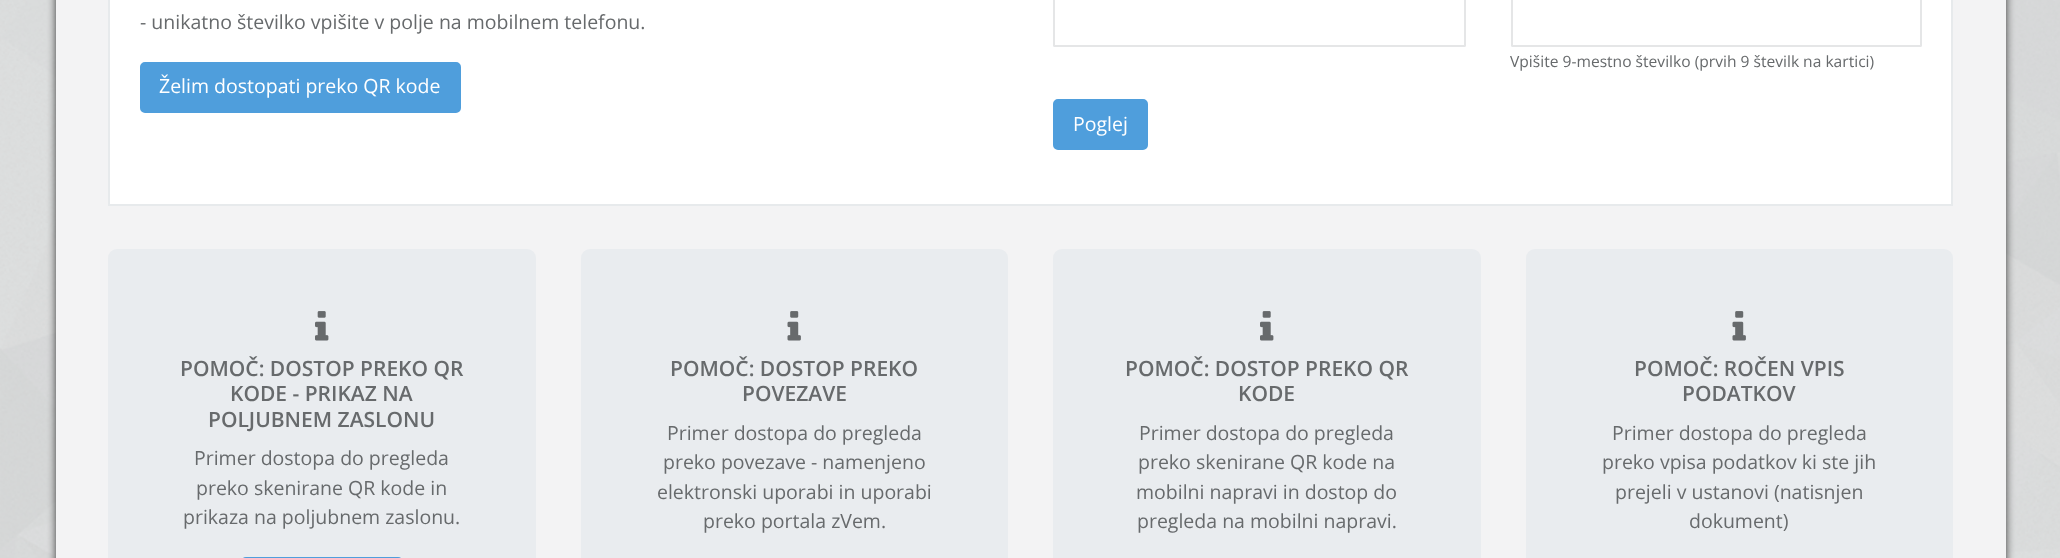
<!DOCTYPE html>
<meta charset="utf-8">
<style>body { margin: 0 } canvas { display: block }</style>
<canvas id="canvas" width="2060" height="558"></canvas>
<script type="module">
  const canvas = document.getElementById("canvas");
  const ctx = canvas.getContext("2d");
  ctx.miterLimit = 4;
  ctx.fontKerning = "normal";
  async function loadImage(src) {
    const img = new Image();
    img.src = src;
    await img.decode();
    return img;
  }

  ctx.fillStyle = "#ffffff";
  ctx.fillRect(0, 0, 2060, 558);
  ctx.drawImage(await loadImage("img1.png"), 0, 0, 2060, 558);
  ctx.fillStyle = "rgba(0, 0, 0, 0.75)";
  ctx.filter = "blur(4px)";
  ctx.beginPath();
  ctx.rect(56, -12, 1950, 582);
  ctx.fill();
  ctx.filter = "none";
  ctx.fillStyle = "#f3f3f4";
  ctx.fillRect(56, 0, 1950, 558);
  ctx.fillStyle = "#ffffff";
  ctx.beginPath();
  ctx.rect(109, -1, 1843, 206);
  ctx.fill();
  ctx.strokeStyle = "#e7eaec";
  ctx.lineWidth = 2;
  ctx.stroke();
  ctx.font = "19.5px Open Sans";
  ctx.fillStyle = "#676a6c";
  ctx.fillText("- unikatno številko vpišite v polje na mobilnem telefonu.", 140, 29);
  ctx.fillStyle = "#4f9edc";
  ctx.beginPath();
  ctx.roundRect(141, 63, 319, 49, 4);
  ctx.fill();
  ctx.strokeStyle = "#4f9edc";
  ctx.stroke();
  ctx.fillStyle = "#ffffff";
  ctx.fillText("Želim dostopati preko QR kode", 159, 93);
  ctx.beginPath();
  ctx.roundRect(1054, -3, 411, 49, 0.5);
  ctx.strokeStyle = "#e5e6e7";
  ctx.stroke();
  ctx.beginPath();
  ctx.roundRect(1512, -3, 409, 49, 0.5);
  ctx.stroke();
  ctx.font = "15.6px Open Sans";
  ctx.fillStyle = "#676a6c";
  ctx.fillText("Vpišite 9-mestno številko (prvih 9 številk na kartici)", 1510, 67);
  ctx.fillStyle = "#4f9edc";
  ctx.beginPath();
  ctx.roundRect(1054, 100, 93, 49, 4);
  ctx.fill();
  ctx.strokeStyle = "#4f9edc";
  ctx.stroke();
  ctx.font = "19.5px Open Sans";
  ctx.fillStyle = "#ffffff";
  ctx.fillText("Poglej", 1073, 131);
  ctx.fillStyle = "#e9ecef";
  ctx.beginPath();
  ctx.roundRect(108, 249, 428, 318, 9);
  ctx.fill();
  ctx.drawImage(await loadImage("img2.png"), 315, 311, 14, 30);
  ctx.font = "600 21px Open Sans";
  ctx.fillStyle = "#676a6c";
  ctx.fillText("POMOČ: DOSTOP PREKO QR", 180, 376);
  ctx.fillText("KODE - PRIKAZ NA", 230, 401);
  ctx.fillText("POLJUBNEM ZASLONU", 208, 427);
  ctx.font = "19.5px Open Sans";
  ctx.fillText("Primer dostopa do pregleda", 194, 465);
  ctx.fillText("preko skenirane QR kode in", 196, 495);
  ctx.fillText("prikaza na poljubnem zaslonu.", 183, 524);
  ctx.beginPath();
  ctx.roundRect(243, 558, 158, 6, 4);
  ctx.stroke();
  ctx.fillStyle = "#e9ecef";
  ctx.beginPath();
  ctx.roundRect(581, 249, 427, 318, 9);
  ctx.fill();
  ctx.drawImage(await loadImage("img3.png"), 787, 311, 14, 30);
  ctx.font = "600 21px Open Sans";
  ctx.fillStyle = "#676a6c";
  ctx.fillText("POMOČ: DOSTOP PREKO", 670, 376);
  ctx.fillText("POVEZAVE", 742, 401);
  ctx.font = "19.5px Open Sans";
  ctx.fillText("Primer dostopa do pregleda", 667, 440);
  ctx.fillText("preko povezave - namenjeno", 663, 469);
  ctx.fillText("elektronski uporabi in uporabi", 657, 499);
  ctx.fillText("preko portala zVem.", 703, 528);
  ctx.fillStyle = "#e9ecef";
  ctx.beginPath();
  ctx.roundRect(1053, 249, 428, 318, 9);
  ctx.fill();
  ctx.drawImage(await loadImage("img2.png"), 1260, 311, 14, 30);
  ctx.font = "600 21px Open Sans";
  ctx.fillStyle = "#676a6c";
  ctx.fillText("POMOČ: DOSTOP PREKO QR", 1125, 376);
  ctx.fillText("KODE", 1238, 401);
  ctx.font = "19.5px Open Sans";
  ctx.fillText("Primer dostopa do pregleda", 1139, 440);
  ctx.fillText("preko skenirane QR kode na", 1138, 469);
  ctx.fillText("mobilni napravi in dostop do", 1136, 499);
  ctx.fillText("pregleda na mobilni napravi.", 1137, 528);
  ctx.fillStyle = "#e9ecef";
  ctx.beginPath();
  ctx.roundRect(1526, 249, 427, 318, 9);
  ctx.fill();
  ctx.drawImage(await loadImage("img3.png"), 1732, 311, 14, 30);
  ctx.font = "600 21px Open Sans";
  ctx.fillStyle = "#676a6c";
  ctx.fillText("POMOČ: ROČEN VPIS", 1634, 376);
  ctx.fillText("PODATKOV", 1682, 401);
  ctx.font = "19.5px Open Sans";
  ctx.fillText("Primer dostopa do pregleda", 1612, 440);
  ctx.fillText("preko vpisa podatkov ki ste jih", 1602, 469);
  ctx.fillText("prejeli v ustanovi (natisnjen", 1615, 499);
  ctx.fillText("dokument)", 1689, 528);
</script>
